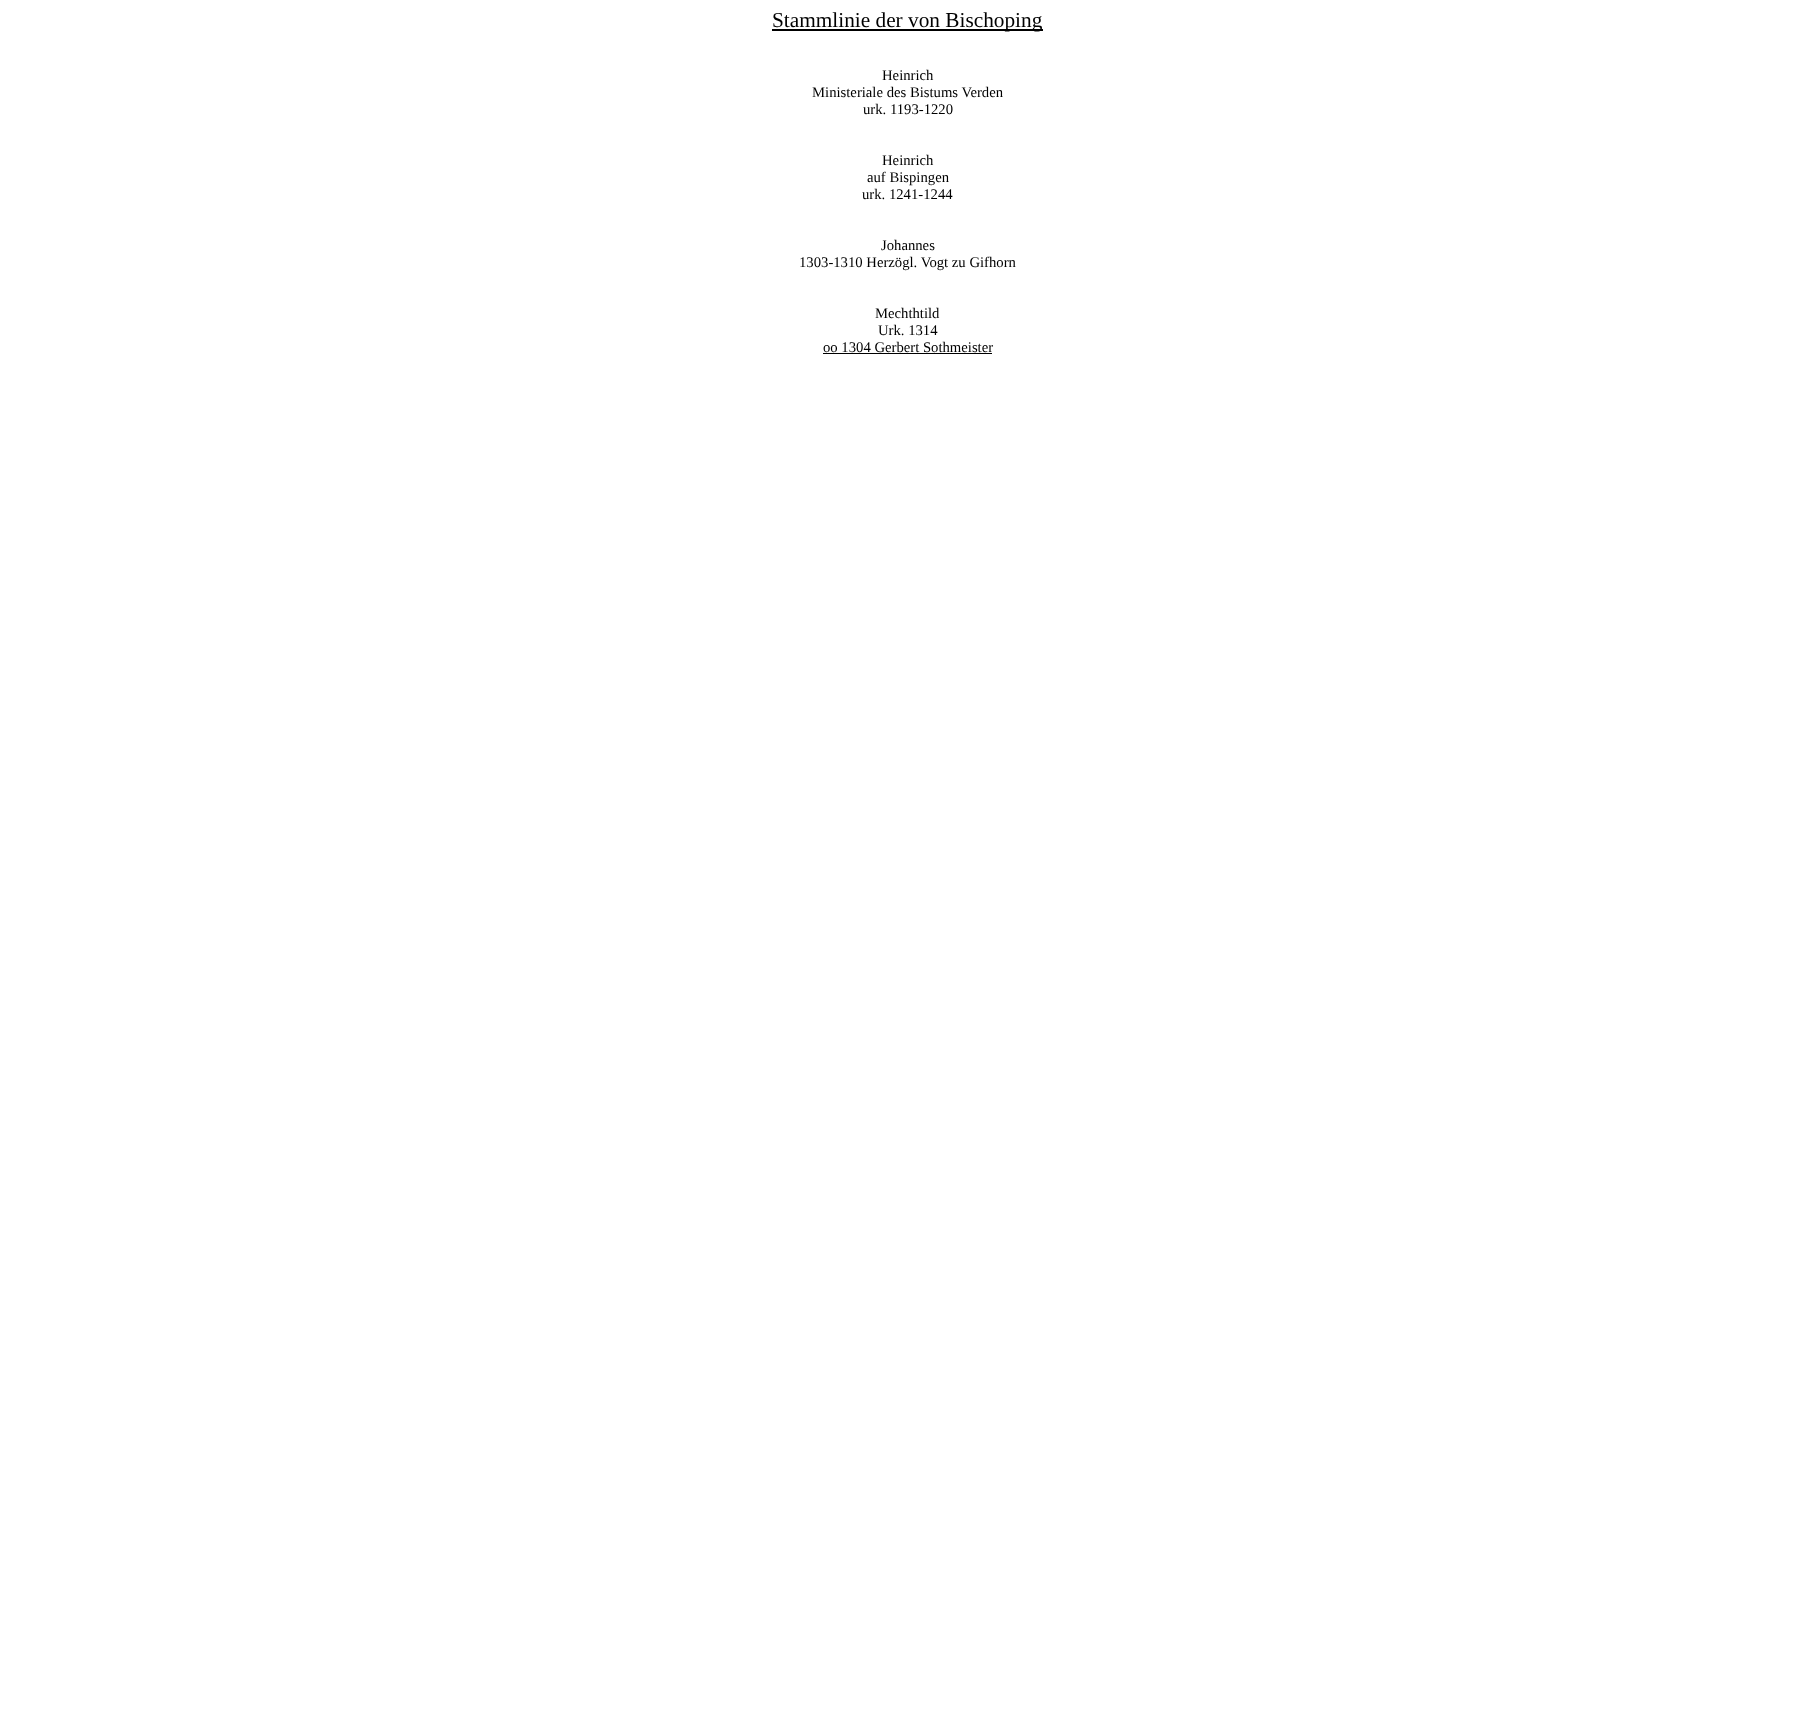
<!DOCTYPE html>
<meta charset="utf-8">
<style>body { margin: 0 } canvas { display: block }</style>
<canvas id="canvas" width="1815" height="1733"></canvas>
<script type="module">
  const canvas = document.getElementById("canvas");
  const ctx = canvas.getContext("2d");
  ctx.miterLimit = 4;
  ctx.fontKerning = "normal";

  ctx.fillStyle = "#ffffff";
  ctx.fillRect(0, 0, 1815, 1733);
  ctx.fillStyle = "#000000";
  ctx.fillRect(772, 29, 271, 2);
  ctx.font = "21.3px Liberation Serif";
  ctx.fillText("Stammlinie der von Bischoping", 772, 27);
  ctx.font = "14.7px Liberation Serif";
  ctx.fillText("Heinrich", 882, 80);
  ctx.fillText("Ministeriale des Bistums Verden", 812, 97);
  ctx.fillText("urk. 1193-1220", 863, 114);
  ctx.fillText("Heinrich", 882, 165);
  ctx.fillText("auf Bispingen", 867, 182);
  ctx.fillText("urk. 1241-1244", 862, 199);
  ctx.fillText("Johannes", 881, 250);
  ctx.fillText("1303-1310 Herzögl. Vogt zu Gifhorn", 799, 267);
  ctx.fillText("Mechthtild", 875, 318);
  ctx.fillText("Urk. 1314", 878, 335);
  ctx.fillText("oo 1304 Gerbert Sothmeister", 823, 352);
  ctx.fillRect(823, 353, 169, 1);
</script>
